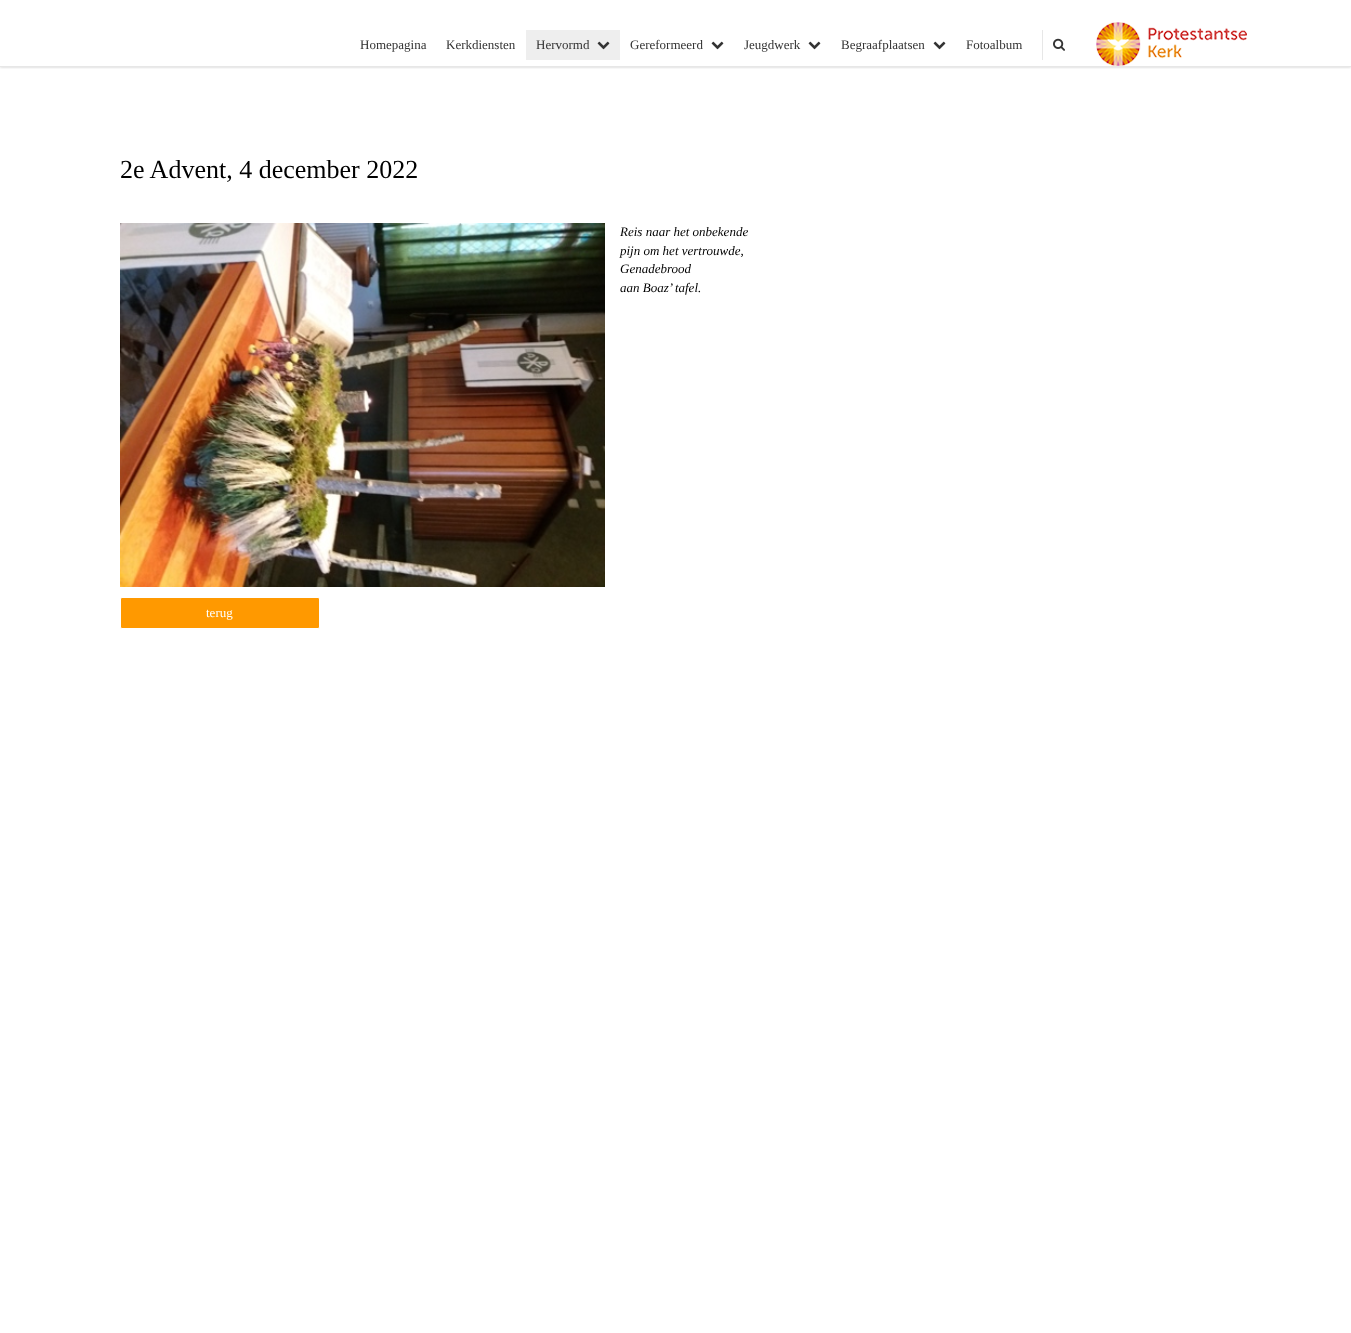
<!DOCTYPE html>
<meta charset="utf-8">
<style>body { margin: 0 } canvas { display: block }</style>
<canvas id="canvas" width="1351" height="1333"></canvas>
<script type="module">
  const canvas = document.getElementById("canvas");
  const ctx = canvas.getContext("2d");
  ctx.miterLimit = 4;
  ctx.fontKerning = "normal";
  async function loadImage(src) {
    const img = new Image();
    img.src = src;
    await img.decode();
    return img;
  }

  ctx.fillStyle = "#ffffff";
  ctx.fillRect(0, 0, 1351, 1333);
  ctx.save();
  ctx.beginPath();
  ctx.rect(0, 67, 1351, 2);
  ctx.clip();
  ctx.fillStyle = "rgba(0, 0, 0, 0.22)";
  ctx.filter = "blur(1.5px)";
  ctx.beginPath();
  ctx.rect(0, 0, 1351, 67);
  ctx.fill();
  ctx.filter = "none";
  ctx.restore();
  ctx.fillStyle = "#e7e7e7";
  ctx.fillRect(0, 66, 1351, 1);
  ctx.font = "13px Liberation Serif";
  ctx.fillStyle = "#333333";
  ctx.fillText("Homepagina", 360, 49);
  ctx.fillText("Kerkdiensten", 446, 49);
  ctx.fillStyle = "#eeeeee";
  ctx.fillRect(526, 30, 94, 30);
  ctx.fillStyle = "#333333";
  ctx.fillText("Hervormd", 536, 49);
  ctx.drawImage(await loadImage("img1.png"), 597, 41, 13, 9);
  ctx.fillText("Gereformeerd", 630, 49);
  ctx.drawImage(await loadImage("img2.png"), 711, 41, 13, 9);
  ctx.fillText("Jeugdwerk", 744, 49);
  ctx.drawImage(await loadImage("img2.png"), 808, 41, 13, 9);
  ctx.fillText("Begraafplaatsen", 841, 49);
  ctx.drawImage(await loadImage("img2.png"), 933, 41, 13, 9);
  ctx.fillText("Fotoalbum", 966, 49);
  ctx.fillStyle = "#e7e7e7";
  ctx.fillRect(1042, 30, 1, 30);
  ctx.drawImage(await loadImage("img3.png"), 1053, 38, 12, 13);
  ctx.drawImage(await loadImage("img4.png"), 1096, 22, 151, 44);
  ctx.font = "26px Liberation Serif";
  ctx.fillStyle = "#000000";
  ctx.fillText("2e Advent, 4 december 2022", 120, 178);
  ctx.drawImage(await loadImage("img5.png"), 120, 223, 485, 364);
  ctx.font = "italic 13px Liberation Serif";
  ctx.fillText("Reis naar het onbekende", 620, 236);
  ctx.fillText("pijn om het vertrouwde,", 620, 255);
  ctx.fillText("Genadebrood", 620, 273);
  ctx.fillText("aan Boaz’ tafel.", 620, 292);
  ctx.fillStyle = "#ff9900";
  ctx.beginPath();
  ctx.roundRect(120.5, 597.5, 199, 31, 1.5);
  ctx.fill();
  ctx.strokeStyle = "#ffffff";
  ctx.stroke();
  ctx.font = "13px Liberation Serif";
  ctx.fillStyle = "#ffffff";
  ctx.fillText("terug", 206, 617);
</script>
